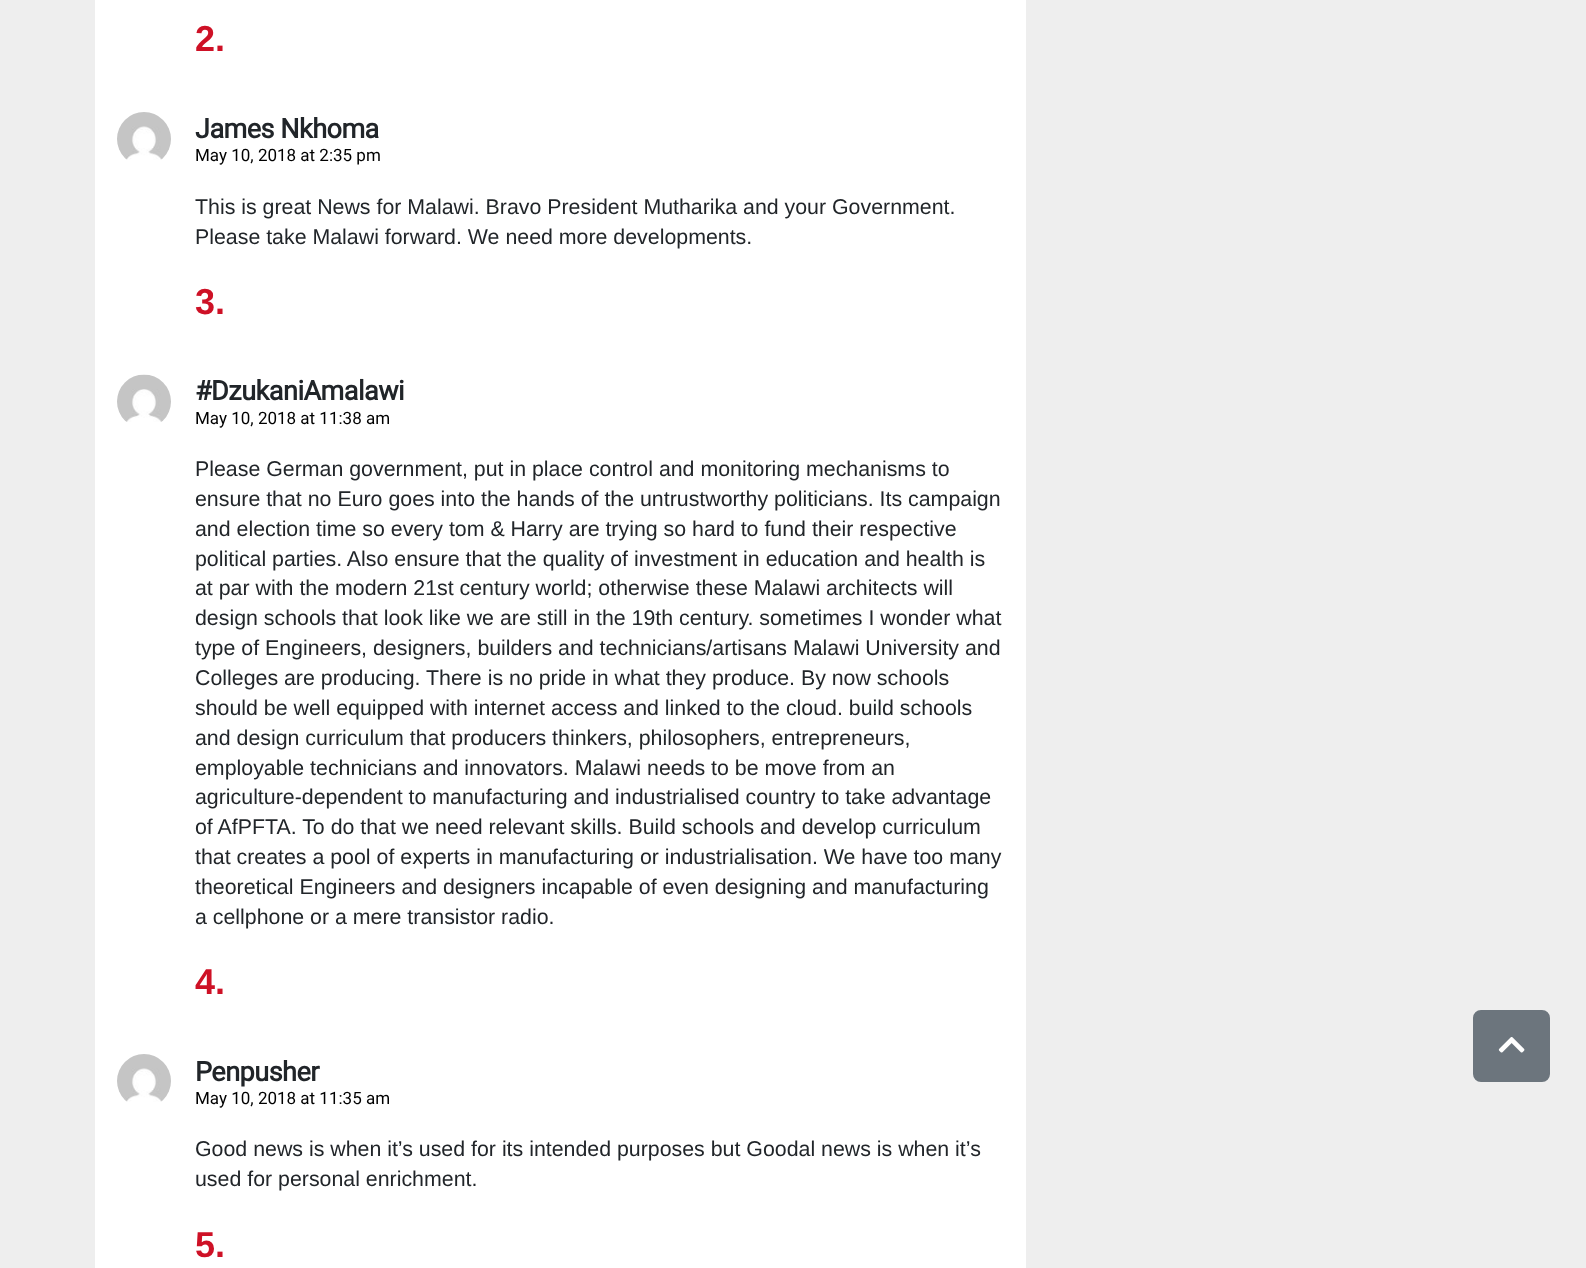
<!DOCTYPE html>
<meta charset="utf-8">
<style>body { margin: 0 } canvas { display: block }</style>
<canvas id="canvas" width="1586" height="1268"></canvas>
<script type="module">
  const canvas = document.getElementById("canvas");
  const ctx = canvas.getContext("2d");
  ctx.miterLimit = 4;
  ctx.fontKerning = "normal";
  async function loadImage(src) {
    const img = new Image();
    img.src = src;
    await img.decode();
    return img;
  }

  ctx.fillStyle = "#eeeeee";
  ctx.fillRect(0, 0, 1586, 1268);
  ctx.fillStyle = "#ffffff";
  ctx.fillRect(95, 0, 931, 1268);
  ctx.font = "bold 36px Liberation Sans";
  ctx.fillStyle = "#ce1126";
  ctx.fillText("2.", 195, 51);
  ctx.drawImage(await loadImage("img1.png"), 117, 112, 54, 48);
  ctx.letterSpacing = "-0.5px";
  ctx.font = "bold 27px Roboto";
  ctx.fillStyle = "#212529";
  ctx.fillText("James Nkhoma", 195, 138);
  ctx.letterSpacing = "0px";
  ctx.font = "17px Roboto";
  ctx.fillStyle = "#000000";
  ctx.fillText("May 10, 2018 at 2:35 pm", 195, 161);
  ctx.font = "21.35px Liberation Sans";
  ctx.fillStyle = "#212529";
  ctx.fillText("This is great News for Malawi. Bravo President Mutharika and your Government.", 195, 214);
  ctx.fillText("Please take Malawi forward. We need more developments.", 195, 244);
  ctx.font = "bold 36px Liberation Sans";
  ctx.fillStyle = "#ce1126";
  ctx.fillText("3.", 195, 314);
  ctx.drawImage(await loadImage("img2.png"), 117, 374, 54, 48);
  ctx.letterSpacing = "-0.5px";
  ctx.font = "bold 27px Roboto";
  ctx.fillStyle = "#212529";
  ctx.fillText("#DzukaniAmalawi", 195, 400);
  ctx.letterSpacing = "0px";
  ctx.font = "17px Roboto";
  ctx.fillStyle = "#000000";
  ctx.fillText("May 10, 2018 at 11:38 am", 195, 424);
  ctx.font = "21.35px Liberation Sans";
  ctx.fillStyle = "#212529";
  ctx.fillText("Please German government, put in place control and monitoring mechanisms to", 195, 476);
  ctx.fillText("ensure that no Euro goes into the hands of the untrustworthy politicians. Its campaign", 195, 506);
  ctx.fillText("and election time so every tom & Harry are trying so hard to fund their respective", 195, 536);
  ctx.fillText("political parties. Also ensure that the quality of investment in education and health is", 195, 566);
  ctx.fillText("at par with the modern 21st century world; otherwise these Malawi architects will", 195, 595);
  ctx.fillText("design schools that look like we are still in the 19th century. sometimes I wonder what", 195, 625);
  ctx.fillText("type of Engineers, designers, builders and technicians/artisans Malawi University and", 195, 655);
  ctx.fillText("Colleges are producing. There is no pride in what they produce. By now schools", 195, 685);
  ctx.fillText("should be well equipped with internet access and linked to the cloud. build schools", 195, 715);
  ctx.fillText("and design curriculum that producers thinkers, philosophers, entrepreneurs,", 195, 745);
  ctx.fillText("employable technicians and innovators. Malawi needs to be move from an", 195, 775);
  ctx.fillText("agriculture-dependent to manufacturing and industrialised country to take advantage", 195, 804);
  ctx.fillText("of AfPFTA. To do that we need relevant skills. Build schools and develop curriculum", 195, 834);
  ctx.fillText("that creates a pool of experts in manufacturing or industrialisation. We have too many", 195, 864);
  ctx.fillText("theoretical Engineers and designers incapable of even designing and manufacturing", 195, 894);
  ctx.fillText("a cellphone or a mere transistor radio.", 195, 924);
  ctx.font = "bold 36px Liberation Sans";
  ctx.fillStyle = "#ce1126";
  ctx.fillText("4.", 195, 994);
  ctx.drawImage(await loadImage("img3.png"), 117, 1054, 54, 48);
  ctx.letterSpacing = "-0.5px";
  ctx.font = "bold 27px Roboto";
  ctx.fillStyle = "#212529";
  ctx.fillText("Penpusher", 195, 1081);
  ctx.letterSpacing = "0px";
  ctx.font = "17px Roboto";
  ctx.fillStyle = "#000000";
  ctx.fillText("May 10, 2018 at 11:35 am", 195, 1104);
  ctx.font = "21.35px Liberation Sans";
  ctx.fillStyle = "#212529";
  ctx.fillText("Good news is when it’s used for its intended purposes but Goodal news is when it’s", 195, 1156);
  ctx.fillText("used for personal enrichment.", 195, 1186);
  ctx.font = "bold 36px Liberation Sans";
  ctx.fillStyle = "#ce1126";
  ctx.fillText("5.", 195, 1257);
  ctx.fillStyle = "#6c757d";
  ctx.beginPath();
  ctx.roundRect(1474, 1011, 75, 70, 7);
  ctx.fill();
  ctx.strokeStyle = "#6c757d";
  ctx.lineWidth = 2;
  ctx.stroke();
  ctx.drawImage(await loadImage("img4.png"), 1498, 1037, 27, 16);
</script>
